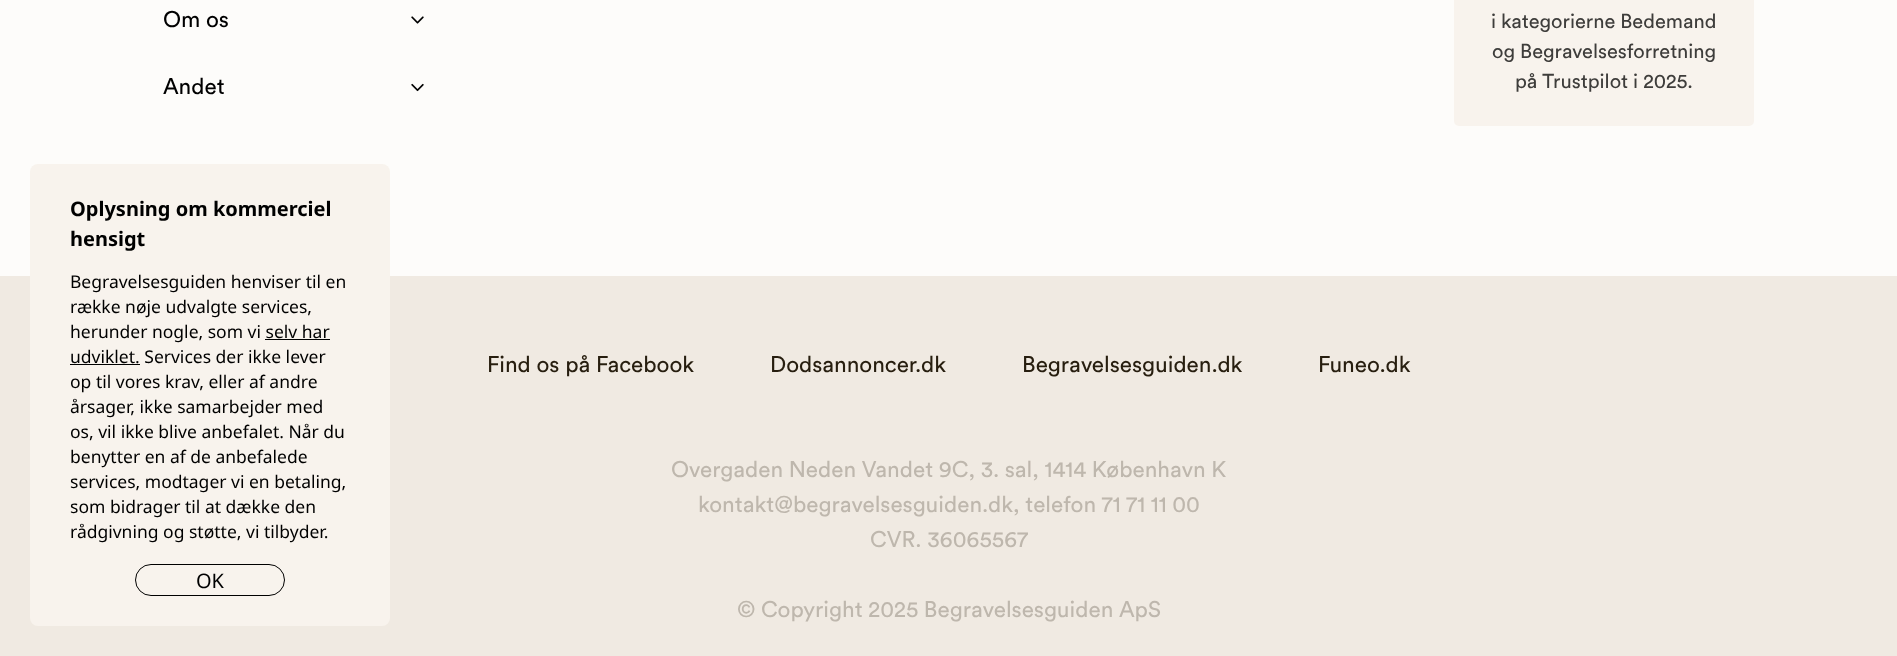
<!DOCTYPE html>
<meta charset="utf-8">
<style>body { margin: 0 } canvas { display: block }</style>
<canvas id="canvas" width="1897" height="656"></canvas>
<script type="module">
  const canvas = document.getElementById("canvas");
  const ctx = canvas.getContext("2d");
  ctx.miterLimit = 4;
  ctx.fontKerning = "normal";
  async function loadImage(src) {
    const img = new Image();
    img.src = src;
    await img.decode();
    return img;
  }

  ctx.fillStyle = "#fdfcfa";
  ctx.fillRect(0, 0, 1897, 656);
  ctx.font = "22.5px Circular";
  ctx.fillStyle = "#000000";
  ctx.fillText("Om os", 163, 27);
  ctx.drawImage(await loadImage("img1.png"), 411, 16, 13, 8);
  ctx.fillText("Andet", 163, 94);
  ctx.drawImage(await loadImage("img2.png"), 411, 83, 13, 9);
  ctx.fillStyle = "#f8f3ed";
  ctx.beginPath();
  ctx.roundRect(1454, -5, 300, 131, 5);
  ctx.fill();
  ctx.font = "20px Circular";
  ctx.fillStyle = "#3e3d3b";
  ctx.fillText("i kategorierne Bedemand", 1491, 28);
  ctx.fillText("og Begravelsesforretning", 1492, 58);
  ctx.fillText("på Trustpilot i 2025.", 1515, 88);
  ctx.fillStyle = "#f0eae2";
  ctx.fillRect(0, 276, 1897, 380);
  ctx.fillStyle = "#f8f3ed";
  ctx.beginPath();
  ctx.roundRect(30, 164, 360, 462, 8);
  ctx.fill();
  ctx.font = "bold 20px Noto Sans";
  ctx.fillStyle = "#000000";
  ctx.fillText("Oplysning om kommerciel", 70, 216);
  ctx.fillText("hensigt", 70, 246);
  ctx.font = "17.5px Noto Sans";
  ctx.fillText("Begravelsesguiden henviser til en", 70, 288);
  ctx.fillText("række nøje udvalgte services,", 70, 313);
  ctx.fillText("herunder nogle, som vi selv har", 70, 338);
  ctx.fillText("udviklet. Services der ikke lever", 70, 363);
  ctx.fillRect(265, 339, 65, 1);
  ctx.fillRect(70, 364, 70, 1);
  ctx.fillText("op til vores krav, eller af andre", 70, 388);
  ctx.fillText("årsager, ikke samarbejder med", 70, 413);
  ctx.fillText("os, vil ikke blive anbefalet. Når du", 70, 438);
  ctx.fillText("benytter en af de anbefalede", 70, 463);
  ctx.fillText("services, modtager vi en betaling,", 70, 488);
  ctx.fillText("som bidrager til at dække den", 70, 513);
  ctx.fillText("rådgivning og støtte, vi tilbyder.", 70, 538);
  ctx.beginPath();
  ctx.roundRect(135.5, 564.5, 149, 31, 15.5);
  ctx.strokeStyle = "#000000";
  ctx.stroke();
  ctx.font = "20px Noto Sans";
  ctx.fillText("OK", 196, 588);
  ctx.font = "22.5px Circular";
  ctx.fillStyle = "#271e0f";
  ctx.fillText("Find os på Facebook", 487, 372);
  ctx.fillText("Dodsannoncer.dk", 770, 372);
  ctx.fillText("Begravelsesguiden.dk", 1022, 372);
  ctx.fillText("Funeo.dk", 1318, 372);
  ctx.fillStyle = "#beb7ad";
  ctx.fillText("Overgaden Neden Vandet 9C, 3. sal, 1414 København K", 671, 477);
  ctx.fillText("kontakt@begravelsesguiden.dk, telefon 71 71 11 00", 698, 512);
  ctx.fillText("CVR. 36065567", 870, 547);
  ctx.fillText("© Copyright 2025 Begravelsesguiden ApS", 737, 617);
</script>
